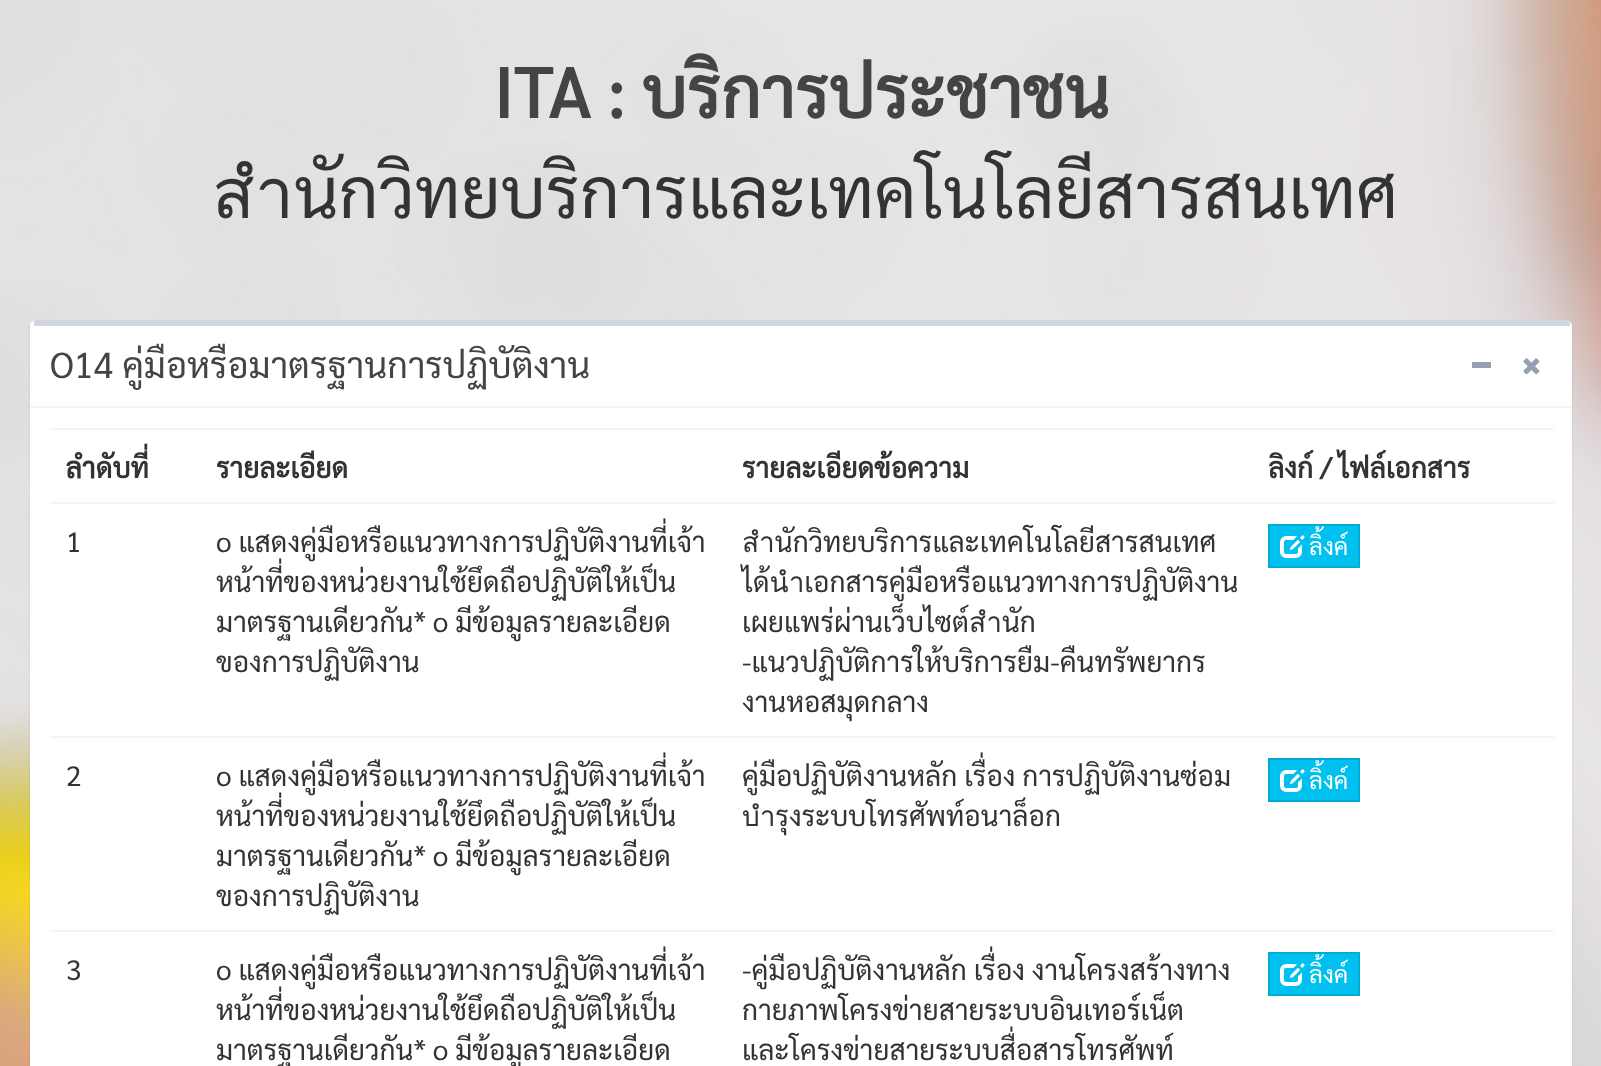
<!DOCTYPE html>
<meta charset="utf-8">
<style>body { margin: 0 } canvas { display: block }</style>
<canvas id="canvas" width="1601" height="1066"></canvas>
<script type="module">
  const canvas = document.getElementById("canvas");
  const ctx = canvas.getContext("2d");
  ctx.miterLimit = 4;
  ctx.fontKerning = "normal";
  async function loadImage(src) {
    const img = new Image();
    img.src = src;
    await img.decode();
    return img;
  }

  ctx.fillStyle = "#ffffff";
  ctx.fillRect(0, 0, 1601, 1066);
  ctx.drawImage(await loadImage("img1.png"), 0, 0, 1601, 1066);
  ctx.font = "bold 70px Sarabun";
  ctx.fillStyle = "#444444";
  ctx.fillText("ITA : บริการประชาชน", 493, 118);
  ctx.font = "70px Sarabun";
  ctx.fillStyle = "#333333";
  ctx.fillText("สำนักวิทยบริการและเทคโนโลยีสารสนเทศ", 212, 218);
  ctx.fillStyle = "rgba(0, 0, 0, 0.1)";
  ctx.filter = "blur(1px)";
  ctx.beginPath();
  ctx.roundRect(30, 322, 1542, 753, 6);
  ctx.fill();
  ctx.filter = "none";
  ctx.fillStyle = "#ffffff";
  ctx.beginPath();
  ctx.roundRect(30, 320, 1542, 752, 6);
  ctx.fill();
  ctx.fillStyle = "#d2d6de";
  ctx.fillRect(34, 320, 1536, 6);
  ctx.fillStyle = "#f4f4f4";
  ctx.fillRect(30, 406, 1542, 2);
  ctx.font = "36px Sarabun";
  ctx.fillStyle = "#444444";
  ctx.fillText("O14 คู่มือหรือมาตรฐานการปฏิบัติงาน", 50, 378);
  ctx.fillStyle = "#97a0b3";
  ctx.fillRect(1472, 362, 19, 6);
  ctx.drawImage(await loadImage("img2.png"), 1523, 358, 17, 17);
  ctx.font = "bold 28px Sarabun";
  ctx.fillStyle = "#333333";
  ctx.fillText("ลำดับที่", 66, 478);
  ctx.fillText("รายละเอียด", 216, 478);
  ctx.fillText("รายละเอียดข้อความ", 742, 478);
  ctx.fillStyle = "#f4f4f4";
  ctx.fillRect(50, 428, 1504, 2);
  ctx.fillStyle = "#333333";
  ctx.fillText("ลิงก์ / ไฟล์เอกสาร", 1268, 478);
  ctx.font = "28px Sarabun";
  ctx.fillText("1", 66, 552);
  ctx.fillText("o แสดงคู่มือหรือแนวทางการปฏิบัติงานที่เจ้า", 216, 552);
  ctx.fillText("หน้าที่ของหน่วยงานใช้ยึดถือปฏิบัติให้เป็น", 216, 592);
  ctx.fillText("มาตรฐานเดียวกัน* o มีข้อมูลรายละเอียด", 216, 632);
  ctx.fillText("ของการปฏิบัติงาน", 216, 672);
  ctx.fillText("สำนักวิทยบริการและเทคโนโลยีสารสนเทศ", 742, 552);
  ctx.fillText("ได้นำเอกสารคู่มือหรือแนวทางการปฏิบัติงาน", 742, 592);
  ctx.fillText("เผยแพร่ผ่านเว็บไซต์สำนัก", 742, 632);
  ctx.fillText("-แนวปฏิบัติการให้บริการยืม-คืนทรัพยากร", 742, 672);
  ctx.fillText("งานหอสมุดกลาง", 742, 712);
  ctx.fillStyle = "#f4f4f4";
  ctx.fillRect(50, 502, 1504, 2);
  ctx.fillStyle = "#00c0ef";
  ctx.beginPath();
  ctx.rect(1269, 525, 90, 42);
  ctx.fill();
  ctx.strokeStyle = "#00acd6";
  ctx.lineWidth = 2;
  ctx.stroke();
  ctx.font = "24px Sarabun";
  ctx.fillStyle = "#ffffff";
  ctx.fillText("ลิ้งค์", 1309, 555);
  ctx.drawImage(await loadImage("img3.png"), 1280, 535, 25, 23);
  ctx.font = "28px Sarabun";
  ctx.fillStyle = "#333333";
  ctx.fillText("2", 66, 786);
  ctx.fillText("o แสดงคู่มือหรือแนวทางการปฏิบัติงานที่เจ้า", 216, 786);
  ctx.fillText("หน้าที่ของหน่วยงานใช้ยึดถือปฏิบัติให้เป็น", 216, 826);
  ctx.fillText("มาตรฐานเดียวกัน* o มีข้อมูลรายละเอียด", 216, 866);
  ctx.fillText("ของการปฏิบัติงาน", 216, 906);
  ctx.fillText("คู่มือปฏิบัติงานหลัก เรื่อง การปฏิบัติงานซ่อม", 742, 786);
  ctx.fillText("บำรุงระบบโทรศัพท์อนาล็อก", 742, 826);
  ctx.fillStyle = "#f4f4f4";
  ctx.fillRect(50, 736, 1504, 2);
  ctx.fillStyle = "#00c0ef";
  ctx.beginPath();
  ctx.rect(1269, 759, 90, 42);
  ctx.fill();
  ctx.stroke();
  ctx.font = "24px Sarabun";
  ctx.fillStyle = "#ffffff";
  ctx.fillText("ลิ้งค์", 1309, 789);
  ctx.drawImage(await loadImage("img3.png"), 1280, 769, 25, 23);
  ctx.font = "28px Sarabun";
  ctx.fillStyle = "#333333";
  ctx.fillText("3", 66, 980);
  ctx.fillText("o แสดงคู่มือหรือแนวทางการปฏิบัติงานที่เจ้า", 216, 980);
  ctx.fillText("หน้าที่ของหน่วยงานใช้ยึดถือปฏิบัติให้เป็น", 216, 1020);
  ctx.fillText("มาตรฐานเดียวกัน* o มีข้อมูลรายละเอียด", 216, 1060);
  ctx.fillText("-คู่มือปฏิบัติงานหลัก เรื่อง งานโครงสร้างทาง", 742, 980);
  ctx.fillText("กายภาพโครงข่ายสายระบบอินเทอร์เน็ต", 742, 1020);
  ctx.fillText("และโครงข่ายสายระบบสื่อสารโทรศัพท์", 742, 1060);
  ctx.fillStyle = "#f4f4f4";
  ctx.fillRect(50, 930, 1504, 2);
  ctx.fillStyle = "#00c0ef";
  ctx.beginPath();
  ctx.rect(1269, 953, 90, 42);
  ctx.fill();
  ctx.stroke();
  ctx.font = "24px Sarabun";
  ctx.fillStyle = "#ffffff";
  ctx.fillText("ลิ้งค์", 1309, 983);
  ctx.drawImage(await loadImage("img3.png"), 1280, 963, 25, 23);
</script>
